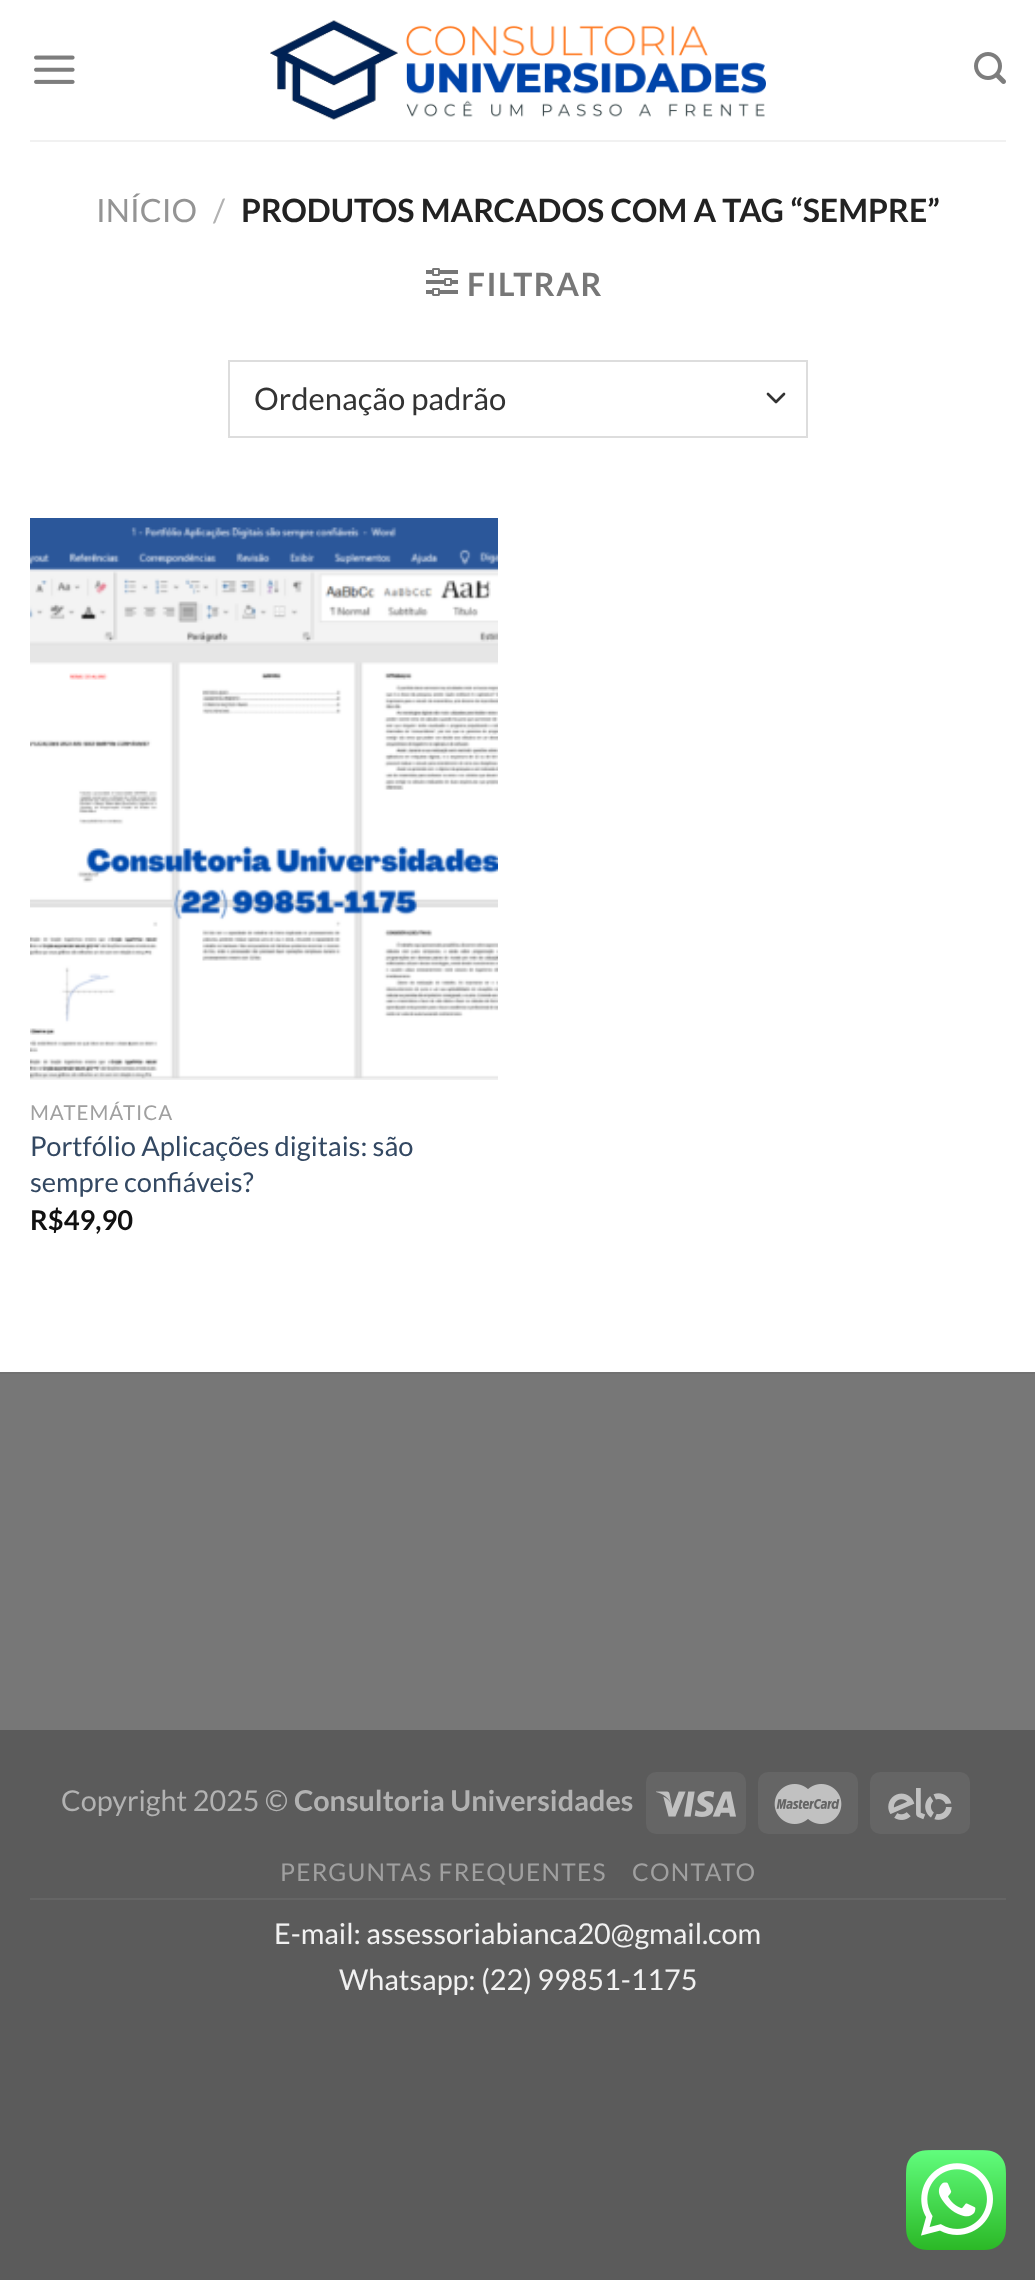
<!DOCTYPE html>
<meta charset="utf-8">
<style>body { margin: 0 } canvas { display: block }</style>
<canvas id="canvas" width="1035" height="2280"></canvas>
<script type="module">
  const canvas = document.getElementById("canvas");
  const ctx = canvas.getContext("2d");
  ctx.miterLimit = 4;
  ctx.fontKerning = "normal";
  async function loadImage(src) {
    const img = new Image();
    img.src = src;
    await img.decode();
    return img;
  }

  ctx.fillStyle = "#5b5b5b";
  ctx.fillRect(0, 0, 1035, 2280);
  ctx.fillStyle = "#ffffff";
  ctx.fillRect(0, 0, 1035, 1372);
  ctx.drawImage(await loadImage("img1.png"), 34, 55, 41, 29);
  ctx.drawImage(await loadImage("img2.png"), 270, 20, 496, 100);
  ctx.drawImage(await loadImage("img3.png"), 974, 52, 32, 32);
  ctx.fillStyle = "#f1f1f1";
  ctx.fillRect(30, 140, 976, 2);
  ctx.font = "32px Lato";
  ctx.fillStyle = "#949494";
  ctx.fillText("INÍCIO", 96, 222);
  ctx.fillStyle = "#b2b2b2";
  ctx.fillText("/", 213, 222);
  ctx.font = "bold 32px Lato";
  ctx.fillStyle = "#222222";
  ctx.fillText("PRODUTOS MARCADOS COM A TAG “SEMPRE”", 241, 222);
  ctx.drawImage(await loadImage("img4.png"), 426, 268, 32, 28);
  ctx.letterSpacing = "1.5px";
  ctx.fillStyle = "#777777";
  ctx.fillText("FILTRAR", 467, 296);
  ctx.beginPath();
  ctx.moveTo(768, 394);
  ctx.lineTo(776, 402);
  ctx.lineTo(784, 394);
  ctx.strokeStyle = "#333333";
  ctx.lineWidth = 2.7;
  ctx.lineCap = "round";
  ctx.lineJoin = "round";
  ctx.stroke();
  ctx.strokeStyle = "#dddddd";
  ctx.lineWidth = 2;
  ctx.lineJoin = "miter";
  ctx.strokeRect(229, 361, 578, 76);
  ctx.letterSpacing = "0px";
  ctx.font = "31px Lato";
  ctx.fillStyle = "#333333";
  ctx.fillText("Ordenação padrão", 254, 410);
  ctx.drawImage(await loadImage("img5.png"), 30, 518, 468, 562);
  ctx.letterSpacing = "1px";
  ctx.font = "20.5px Lato";
  ctx.fillStyle = "#a0a0a0";
  ctx.fillText("MATEMÁTICA", 30, 1120);
  ctx.letterSpacing = "0px";
  ctx.font = "27.25px Lato";
  ctx.fillStyle = "#334862";
  ctx.fillText("Portfólio Aplicações digitais: são", 30, 1156);
  ctx.fillText("sempre confiáveis?", 30, 1192);
  ctx.font = "bold 27.25px Lato";
  ctx.fillStyle = "#111111";
  ctx.fillText("R$49,90", 30, 1230);
  ctx.fillStyle = "#777777";
  ctx.fillRect(0, 1374, 1035, 356);
  ctx.fillStyle = "#717171";
  ctx.fillRect(0, 1372, 1035, 2);
  ctx.font = "28.75px Lato";
  ctx.fillStyle = "#b2b2b2";
  ctx.fillText("Copyright 2025 ©", 61, 1811);
  ctx.font = "bold 28.75px Lato";
  ctx.fillText("Consultoria Universidades", 294, 1811);
  ctx.fillStyle = "#656565";
  ctx.beginPath();
  ctx.roundRect(646, 1772, 100, 62, 10);
  ctx.fill();
  ctx.drawImage(await loadImage("img6.png"), 656, 1791, 80, 26);
  ctx.beginPath();
  ctx.roundRect(758, 1772, 100, 62, 10);
  ctx.fill();
  ctx.drawImage(await loadImage("img7.png"), 774, 1784, 68, 40);
  ctx.beginPath();
  ctx.roundRect(870, 1772, 100, 62, 10);
  ctx.fill();
  ctx.drawImage(await loadImage("img8.png"), 888, 1788, 64, 32);
  ctx.fillRect(30, 1898, 976, 2);
  ctx.letterSpacing = "1.25px";
  ctx.font = "24.5px Lato";
  ctx.fillStyle = "#a0a0a0";
  ctx.fillText("PERGUNTAS FREQUENTES", 280, 1881);
  ctx.fillText("CONTATO", 632, 1881);
  ctx.letterSpacing = "0px";
  ctx.font = "28.75px Lato";
  ctx.fillStyle = "#f1f1f1";
  ctx.fillText("E-mail: assessoriabianca20@gmail.com", 274, 1944);
  ctx.fillText("Whatsapp: (22) 99851-1175", 339, 1990);
  ctx.drawImage(await loadImage("img9.png"), 906, 2150, 100, 100);
</script>
